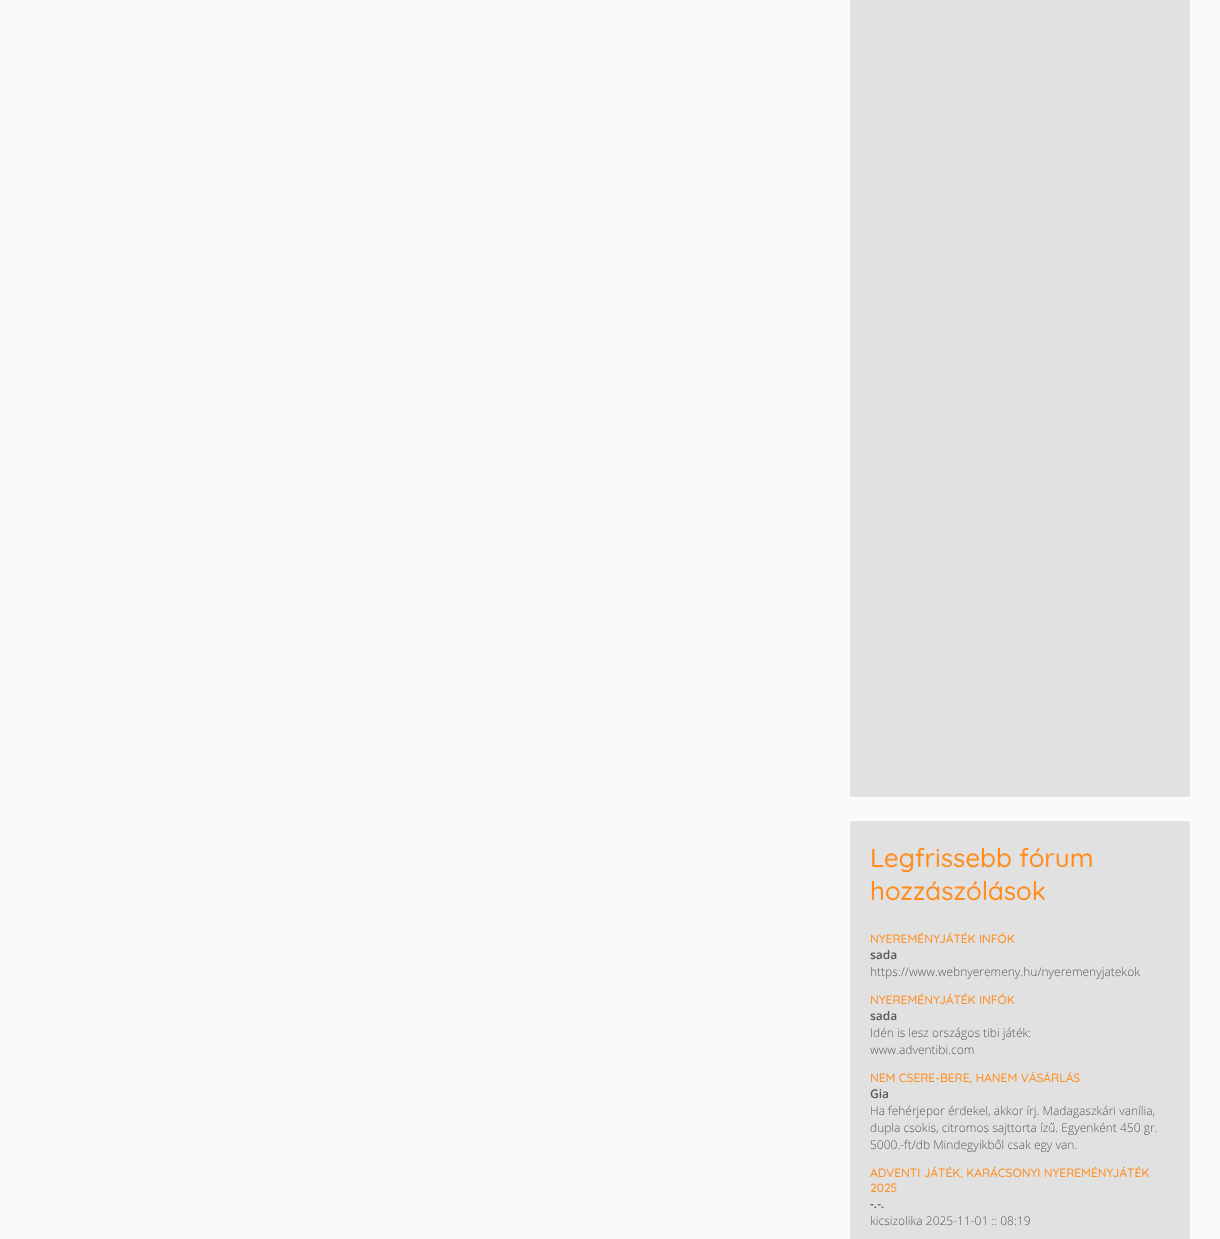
<!DOCTYPE html>
<meta charset="utf-8">
<style>body { margin: 0 } canvas { display: block }</style>
<canvas id="canvas" width="1220" height="1239"></canvas>
<script type="module">
  const canvas = document.getElementById("canvas");
  const ctx = canvas.getContext("2d");
  ctx.miterLimit = 4;
  ctx.fontKerning = "normal";

  ctx.fillStyle = "#fafafa";
  ctx.fillRect(0, 0, 1220, 1239);
  ctx.fillStyle = "#e1e1e2";
  ctx.beginPath();
  ctx.roundRect(850, -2, 340, 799, 2);
  ctx.fill();
  ctx.beginPath();
  ctx.roundRect(850, 821, 340, 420, 2);
  ctx.fill();
  ctx.font = "300 26px Quicksand";
  ctx.fillStyle = "#ff8c1c";
  ctx.fillText("Legfrissebb fórum", 870, 867);
  ctx.fillText("hozzászólások", 870, 900);
  ctx.font = "300 12px Quicksand";
  ctx.fillText("NYEREMÉNYJÁTÉK INFÓK", 870, 943);
  ctx.font = "600 12px Open Sans";
  ctx.fillStyle = "#595959";
  ctx.fillText("sada", 870, 959);
  ctx.font = "300 12px Open Sans";
  ctx.fillText("https://www.webnyeremeny.hu/nyeremenyjatekok", 870, 976);
  ctx.font = "300 12px Quicksand";
  ctx.fillStyle = "#ff8c1c";
  ctx.fillText("NYEREMÉNYJÁTÉK INFÓK", 870, 1004);
  ctx.font = "600 12px Open Sans";
  ctx.fillStyle = "#595959";
  ctx.fillText("sada", 870, 1020);
  ctx.font = "300 12px Open Sans";
  ctx.fillText("Idén is lesz országos tibi játék:", 870, 1037);
  ctx.fillText("www.adventibi.com", 870, 1054);
  ctx.font = "300 12px Quicksand";
  ctx.fillStyle = "#ff8c1c";
  ctx.fillText("NEM CSERE-BERE, HANEM VÁSÁRLÁS", 870, 1082);
  ctx.font = "600 12px Open Sans";
  ctx.fillStyle = "#595959";
  ctx.fillText("Gia", 870, 1098);
  ctx.font = "300 12px Open Sans";
  ctx.fillText("Ha fehérjepor érdekel, akkor írj. Madagaszkári vanília,", 870, 1115);
  ctx.fillText("dupla csokis, citromos sajttorta ízű. Egyenként 450 gr.", 870, 1132);
  ctx.fillText("5000.-ft/db Mindegyikből csak egy van.", 870, 1149);
  ctx.font = "300 12px Quicksand";
  ctx.fillStyle = "#ff8c1c";
  ctx.fillText("ADVENTI JÁTÉK, KARÁCSONYI NYEREMÉNYJÁTÉK", 870, 1177);
  ctx.fillText("2025", 870, 1192);
  ctx.font = "600 12px Open Sans";
  ctx.fillStyle = "#595959";
  ctx.fillText("-.-.", 870, 1208);
  ctx.font = "300 12px Open Sans";
  ctx.fillText("kicsizolika 2025-11-01 :: 08:19", 870, 1225);
</script>
